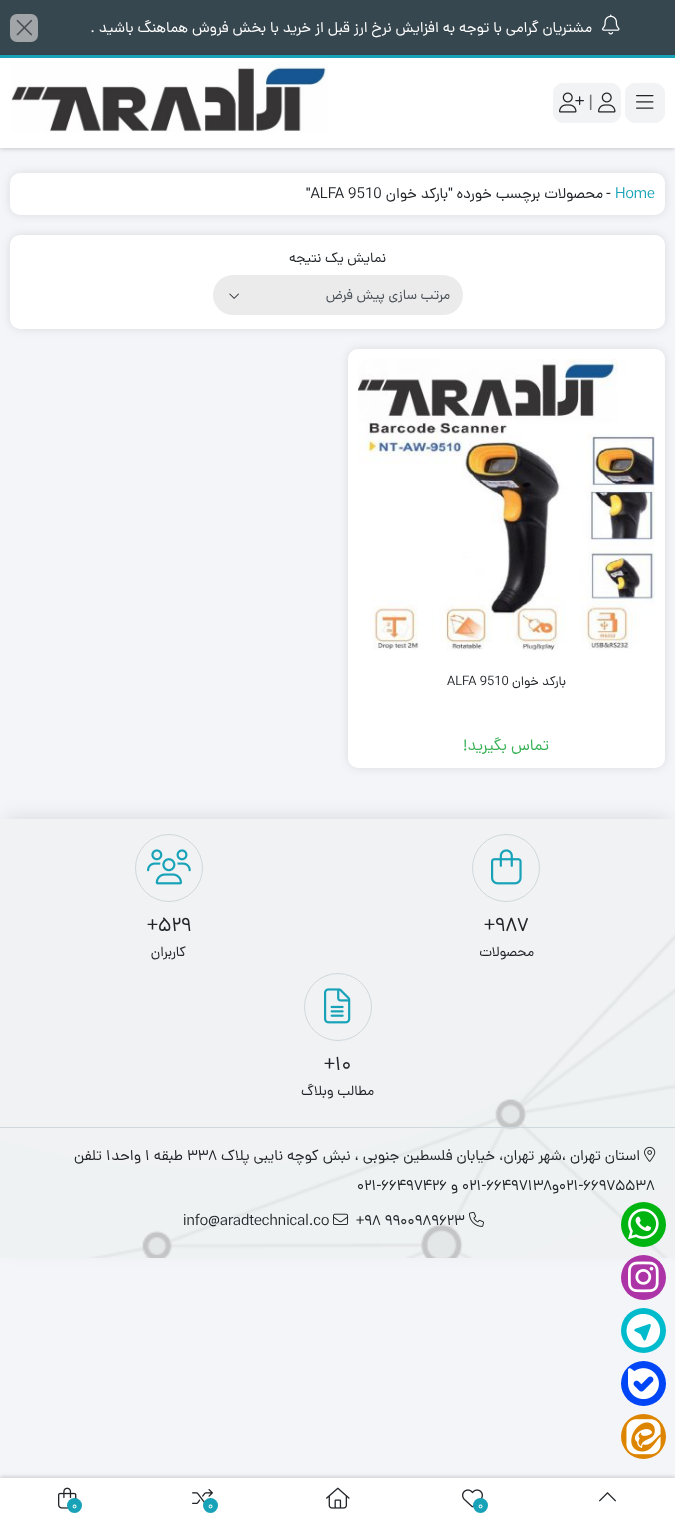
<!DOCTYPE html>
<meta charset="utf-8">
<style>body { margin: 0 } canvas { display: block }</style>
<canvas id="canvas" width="675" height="1519"></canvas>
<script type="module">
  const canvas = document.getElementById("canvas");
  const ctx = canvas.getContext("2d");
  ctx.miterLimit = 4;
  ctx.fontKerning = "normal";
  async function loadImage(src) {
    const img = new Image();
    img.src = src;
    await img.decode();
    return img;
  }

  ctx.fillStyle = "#f4f5f9";
  ctx.fillRect(0, 0, 675, 1519);
  ctx.fillStyle = "#37474f";
  ctx.fillRect(0, 0, 675, 55);
  ctx.drawImage(await loadImage("img1.png"), 602, 14, 18, 21);
  ctx.direction = "rtl";
  ctx.font = "15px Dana";
  ctx.fillStyle = "#ffffff";
  ctx.fillText("مشتریان گرامی با توجه به افزایش نرخ ارز قبل از خرید با بخش فروش هماهنگ باشید .", 592, 32);
  ctx.fillStyle = "#a2a5a7";
  ctx.beginPath();
  ctx.roundRect(10, 14, 28, 28, 7);
  ctx.fill();
  ctx.drawImage(await loadImage("img2.png"), 16, 19, 17, 17);
  ctx.fillStyle = "rgba(0, 0, 0, 0.19)";
  ctx.filter = "blur(2px)";
  ctx.beginPath();
  ctx.rect(0, 56, 675, 93);
  ctx.fill();
  ctx.filter = "none";
  ctx.fillStyle = "#ffffff";
  ctx.fillRect(0, 58, 675, 90);
  ctx.fillStyle = "#17a2b8";
  ctx.fillRect(0, 55, 675, 3);
  ctx.fillStyle = "#f1f3f4";
  ctx.beginPath();
  ctx.roundRect(625.5, 83.5, 39, 39, 9.5);
  ctx.fill();
  ctx.strokeStyle = "#f1f3f4";
  ctx.stroke();
  ctx.drawImage(await loadImage("img3.png"), 636, 95, 18, 14);
  ctx.beginPath();
  ctx.roundRect(553.5, 83.5, 67, 39, 9.5);
  ctx.fill();
  ctx.stroke();
  ctx.drawImage(await loadImage("img4.png"), 598, 92, 18, 21);
  ctx.direction = "ltr";
  ctx.font = "19px Dana";
  ctx.fillStyle = "#777777";
  ctx.fillText("|", 588, 108);
  ctx.drawImage(await loadImage("img5.png"), 559, 92, 25, 21);
  ctx.drawImage(await loadImage("img6.png"), 11, 63, 317, 69);
  ctx.fillStyle = "rgba(0, 0, 0, 0.1)";
  ctx.filter = "blur(5px)";
  ctx.beginPath();
  ctx.roundRect(10, 173, 655, 42, 10);
  ctx.fill();
  ctx.filter = "none";
  ctx.fillStyle = "#ffffff";
  ctx.beginPath();
  ctx.roundRect(10, 173, 655, 42, 10);
  ctx.fill();
  ctx.font = "15px Dana";
  ctx.fillStyle = "#17a2b8";
  ctx.fillText("Home", 615, 198);
  ctx.fillStyle = "#212529";
  ctx.fillText("-", 606, 198);
  ctx.direction = "rtl";
  ctx.fillText("محصولات برچسب خورده \"بارکد خوان", 603, 198);
  ctx.direction = "ltr";
  ctx.fillText("\"ALFA 9510", 306, 198);
  ctx.fillStyle = "rgba(0, 0, 0, 0.1)";
  ctx.filter = "blur(5px)";
  ctx.beginPath();
  ctx.roundRect(10, 235, 655, 94, 10);
  ctx.fill();
  ctx.filter = "none";
  ctx.fillStyle = "#ffffff";
  ctx.beginPath();
  ctx.roundRect(10, 235, 655, 94, 10);
  ctx.fill();
  ctx.direction = "rtl";
  ctx.font = "14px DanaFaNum";
  ctx.fillStyle = "#212529";
  ctx.fillText("نمایش یک نتیجه", 386, 262);
  ctx.fillStyle = "#ebebeb";
  ctx.beginPath();
  ctx.roundRect(213, 275, 250, 40, 20);
  ctx.fill();
  ctx.font = "14px Dana";
  ctx.fillStyle = "#495057";
  ctx.fillText("مرتب سازی پیش فرض", 450, 299);
  ctx.drawImage(await loadImage("img7.png"), 229, 293, 10, 6);
  ctx.fillStyle = "rgba(0, 0, 0, 0.1)";
  ctx.filter = "blur(5px)";
  ctx.beginPath();
  ctx.roundRect(348, 349, 317, 419, 10);
  ctx.fill();
  ctx.filter = "none";
  ctx.fillStyle = "#ffffff";
  ctx.beginPath();
  ctx.roundRect(348, 349, 317, 419, 10);
  ctx.fill();
  ctx.drawImage(await loadImage("img8.png"), 358, 359, 297, 292);
  ctx.font = "13px Dana";
  ctx.fillStyle = "#212529";
  ctx.fillText("بارکد خوان", 566, 685);
  ctx.direction = "ltr";
  ctx.fillText("ALFA 9510", 447, 685);
  ctx.direction = "rtl";
  ctx.font = "16px DanaFaNum";
  ctx.fillStyle = "#39b156";
  ctx.fillText("تماس بگیرید!", 549, 750);
  ctx.fillStyle = "rgba(0, 0, 0, 0.12)";
  ctx.filter = "blur(10px)";
  ctx.beginPath();
  ctx.rect(6, 819, 663, 427);
  ctx.fill();
  ctx.filter = "none";
  ctx.drawImage(await loadImage("img9.png"), 0, 819, 675, 439);
  ctx.fillStyle = "#cfd8dc";
  ctx.fillRect(0, 1127, 675, 1);
  ctx.beginPath();
  ctx.arc(506, 868, 33.5, 0, Math.PI * 2);
  ctx.strokeStyle = "#cfd8dc";
  ctx.stroke();
  ctx.drawImage(await loadImage("img10.png"), 491, 849, 31, 36);
  ctx.direction = "ltr";
  ctx.font = "20px DanaFaNum";
  ctx.fillStyle = "#212529";
  ctx.fillText("+987", 484, 931);
  ctx.direction = "rtl";
  ctx.font = "14px Dana";
  ctx.fillText("محصولات", 534, 956);
  ctx.beginPath();
  ctx.arc(169, 868, 33.5, 0, Math.PI * 2);
  ctx.stroke();
  ctx.drawImage(await loadImage("img11.png"), 147, 849, 44, 36);
  ctx.direction = "ltr";
  ctx.font = "20px DanaFaNum";
  ctx.fillText("+529", 147, 931);
  ctx.direction = "rtl";
  ctx.font = "14px Dana";
  ctx.fillText("کاربران", 186, 956);
  ctx.beginPath();
  ctx.arc(338, 1007, 33.5, 0, Math.PI * 2);
  ctx.stroke();
  ctx.drawImage(await loadImage("img12.png"), 324, 988, 27, 36);
  ctx.direction = "ltr";
  ctx.font = "20px DanaFaNum";
  ctx.fillText("+10", 324, 1070);
  ctx.direction = "rtl";
  ctx.font = "14px Dana";
  ctx.fillText("مطالب وبلاگ", 374, 1095);
  ctx.drawImage(await loadImage("img13.png"), 644, 1146, 12, 16);
  ctx.font = "15px DanaFaNum";
  ctx.fillText("استان تهران ،شهر تهران، خیابان فلسطین جنوبی ، نبش کوچه نایبی پلاک", 640, 1160);
  ctx.direction = "ltr";
  ctx.fillText("338", 187, 1160);
  ctx.direction = "rtl";
  ctx.fillText("طبقه", 183, 1160);
  ctx.direction = "ltr";
  ctx.fillText("1", 145, 1160);
  ctx.direction = "rtl";
  ctx.fillText("واحد", 141, 1160);
  ctx.direction = "ltr";
  ctx.fillText("1", 106, 1160);
  ctx.direction = "rtl";
  ctx.fillText("تلفن", 102, 1160);
  ctx.direction = "ltr";
  ctx.fillText("021-66975538", 559, 1190);
  ctx.direction = "rtl";
  ctx.fillText("و", 559, 1190);
  ctx.direction = "ltr";
  ctx.fillText("021-66497138", 462, 1190);
  ctx.direction = "rtl";
  ctx.fillText("و", 458, 1190);
  ctx.direction = "ltr";
  ctx.fillText("021-66497426", 357, 1190);
  ctx.drawImage(await loadImage("img14.png"), 469, 1211, 15, 16);
  ctx.fillText("+98 9900989623", 356, 1225);
  ctx.drawImage(await loadImage("img15.png"), 333, 1213, 15, 12);
  ctx.fillText("info@aradtechnical.co", 183, 1225);
  ctx.fillStyle = "#00b512";
  ctx.beginPath();
  ctx.arc(643.5, 1224.5, 22.5, 0, Math.PI * 2);
  ctx.fill();
  ctx.drawImage(await loadImage("img16.png"), 628, 1208, 31, 32);
  ctx.fillStyle = "#ac34a7";
  ctx.beginPath();
  ctx.arc(643.5, 1277.5, 22.5, 0, Math.PI * 2);
  ctx.fill();
  ctx.drawImage(await loadImage("img17.png"), 628, 1261, 31, 32);
  ctx.fillStyle = "#00bbcc";
  ctx.beginPath();
  ctx.arc(643.5, 1330.5, 22.5, 0, Math.PI * 2);
  ctx.fill();
  ctx.drawImage(await loadImage("img18.png"), 626, 1314, 35, 34);
  ctx.fillStyle = "#0046f7";
  ctx.beginPath();
  ctx.arc(643.5, 1383.5, 22.5, 0, Math.PI * 2);
  ctx.fill();
  ctx.drawImage(await loadImage("img19.png"), 628, 1368, 31, 32);
  ctx.fillStyle = "#dd8500";
  ctx.beginPath();
  ctx.arc(643.5, 1436.5, 22.5, 0, Math.PI * 2);
  ctx.fill();
  ctx.drawImage(await loadImage("img20.png"), 626, 1419, 35, 36);
  ctx.fillStyle = "rgba(0, 0, 0, 0.19)";
  ctx.filter = "blur(2px)";
  ctx.beginPath();
  ctx.rect(0, 1477, 675, 41);
  ctx.fill();
  ctx.filter = "none";
  ctx.fillStyle = "#ffffff";
  ctx.fillRect(0, 1478, 675, 41);
  ctx.drawImage(await loadImage("img21.png"), 599, 1492, 17, 10);
  ctx.drawImage(await loadImage("img22.png"), 326, 1487, 24, 22);
  ctx.drawImage(await loadImage("img23.png"), 462, 1489, 21, 19);
  ctx.fillStyle = "#17a2b8";
  ctx.beginPath();
  ctx.arc(480.5, 1505.5, 7.5, 0, Math.PI * 2);
  ctx.fill();
  ctx.font = "11px DanaFaNum";
  ctx.fillStyle = "#ffffff";
  ctx.fillText("0", 478, 1509);
  ctx.drawImage(await loadImage("img24.png"), 192, 1489, 21, 15);
  ctx.fillStyle = "#17a2b8";
  ctx.beginPath();
  ctx.arc(210.5, 1505.5, 7.5, 0, Math.PI * 2);
  ctx.fill();
  ctx.fillStyle = "#ffffff";
  ctx.fillText("0", 208, 1509);
  ctx.drawImage(await loadImage("img25.png"), 58, 1487, 19, 22);
  ctx.fillStyle = "#17a2b8";
  ctx.beginPath();
  ctx.arc(74.5, 1505.5, 7.5, 0, Math.PI * 2);
  ctx.fill();
  ctx.fillStyle = "#ffffff";
  ctx.fillText("0", 72, 1509);
</script>
